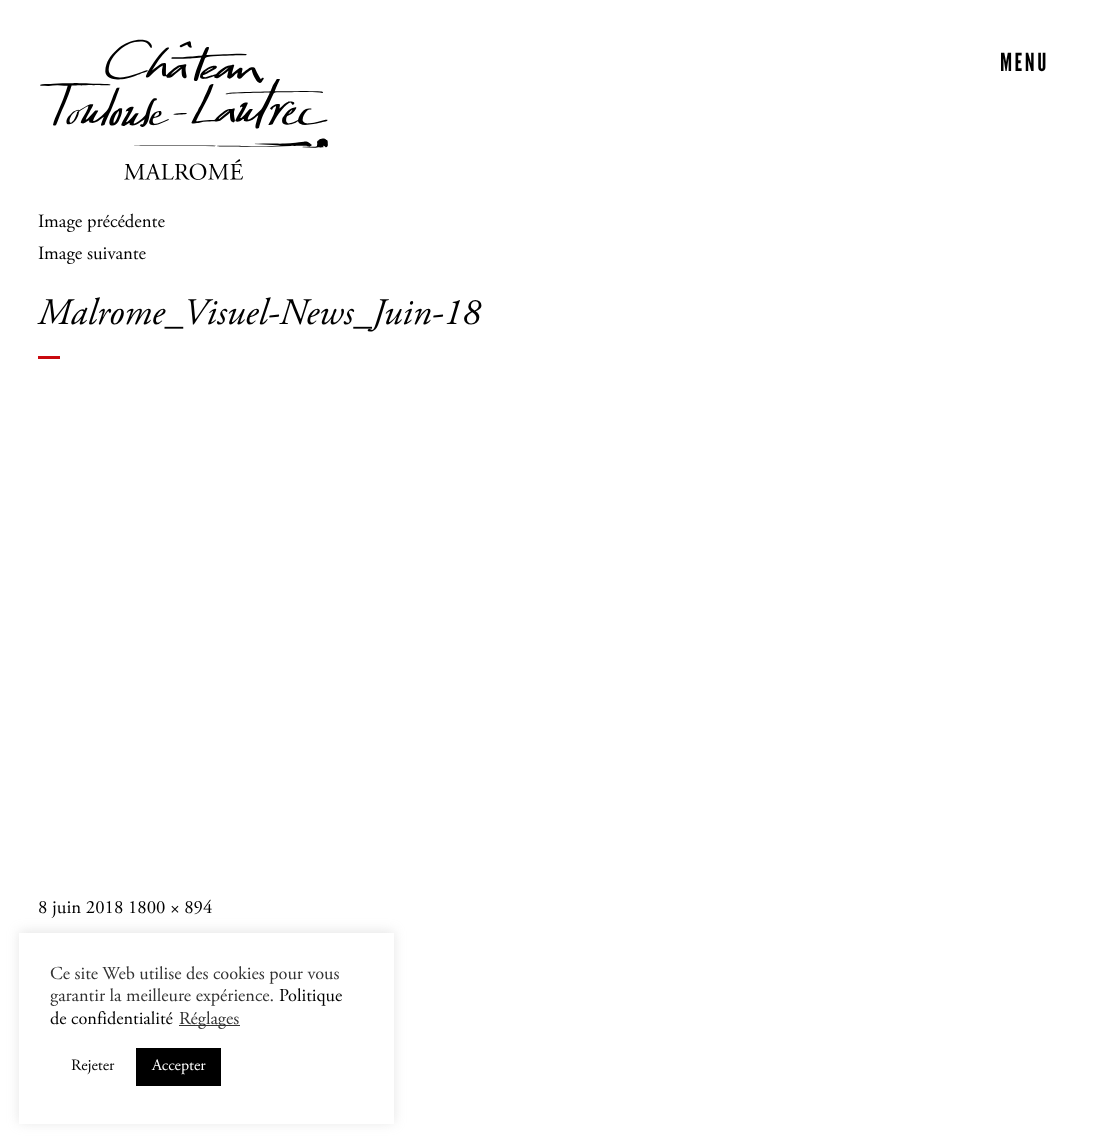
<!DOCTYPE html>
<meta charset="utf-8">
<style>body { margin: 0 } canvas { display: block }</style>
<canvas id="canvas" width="1098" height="1142"></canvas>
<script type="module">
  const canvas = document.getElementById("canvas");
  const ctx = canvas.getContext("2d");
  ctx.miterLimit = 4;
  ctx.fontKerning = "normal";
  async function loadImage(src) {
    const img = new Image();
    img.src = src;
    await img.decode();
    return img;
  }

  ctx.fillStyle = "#ffffff";
  ctx.fillRect(0, 0, 1098, 1142);
  ctx.drawImage(await loadImage("img1.png"), 40, 39, 288, 141);
  ctx.letterSpacing = "2.5px";
  ctx.font = "25px League Gothic";
  ctx.fillStyle = "#000000";
  ctx.fillText("MENU", 1000, 71);
  ctx.letterSpacing = "0px";
  ctx.font = "18.75px Adobe Garamond";
  ctx.fillText("Image précédente", 38, 227);
  ctx.fillText("Image suivante", 38, 259);
  ctx.font = "italic 37.5px Adobe Garamond";
  ctx.fillText("Malrome_Visuel-News_Juin-18", 38, 324);
  ctx.fillStyle = "#c9090f";
  ctx.fillRect(38, 356, 22, 3);
  ctx.font = "18.75px Adobe Garamond";
  ctx.fillStyle = "#000000";
  ctx.fillText("8 juin 2018 1800 × 894", 38, 913);
  ctx.fillStyle = "rgba(172, 171, 171, 0.3)";
  ctx.filter = "blur(6px)";
  ctx.beginPath();
  ctx.rect(19, 931, 375, 192);
  ctx.fill();
  ctx.filter = "none";
  ctx.fillStyle = "#ffffff";
  ctx.fillRect(19, 933, 375, 191);
  ctx.font = "18.3px Adobe Garamond";
  ctx.fillStyle = "#333333";
  ctx.fillText("Ce site Web utilise des cookies pour vous", 50, 979);
  ctx.fillText("garantir la meilleure expérience.", 50, 1001);
  ctx.fillStyle = "#000000";
  ctx.fillText("Politique", 279, 1001);
  ctx.fillText("de confidentialité", 50, 1024);
  ctx.fillStyle = "#333333";
  ctx.fillRect(179, 1025, 61, 1);
  ctx.fillText("Réglages", 179, 1024);
  ctx.font = "16px Adobe Garamond";
  ctx.fillStyle = "#000000";
  ctx.fillText("Rejeter", 71, 1070);
  ctx.fillRect(136, 1048, 85, 38);
  ctx.fillStyle = "#ffffff";
  ctx.fillText("Accepter", 152, 1070);
</script>
